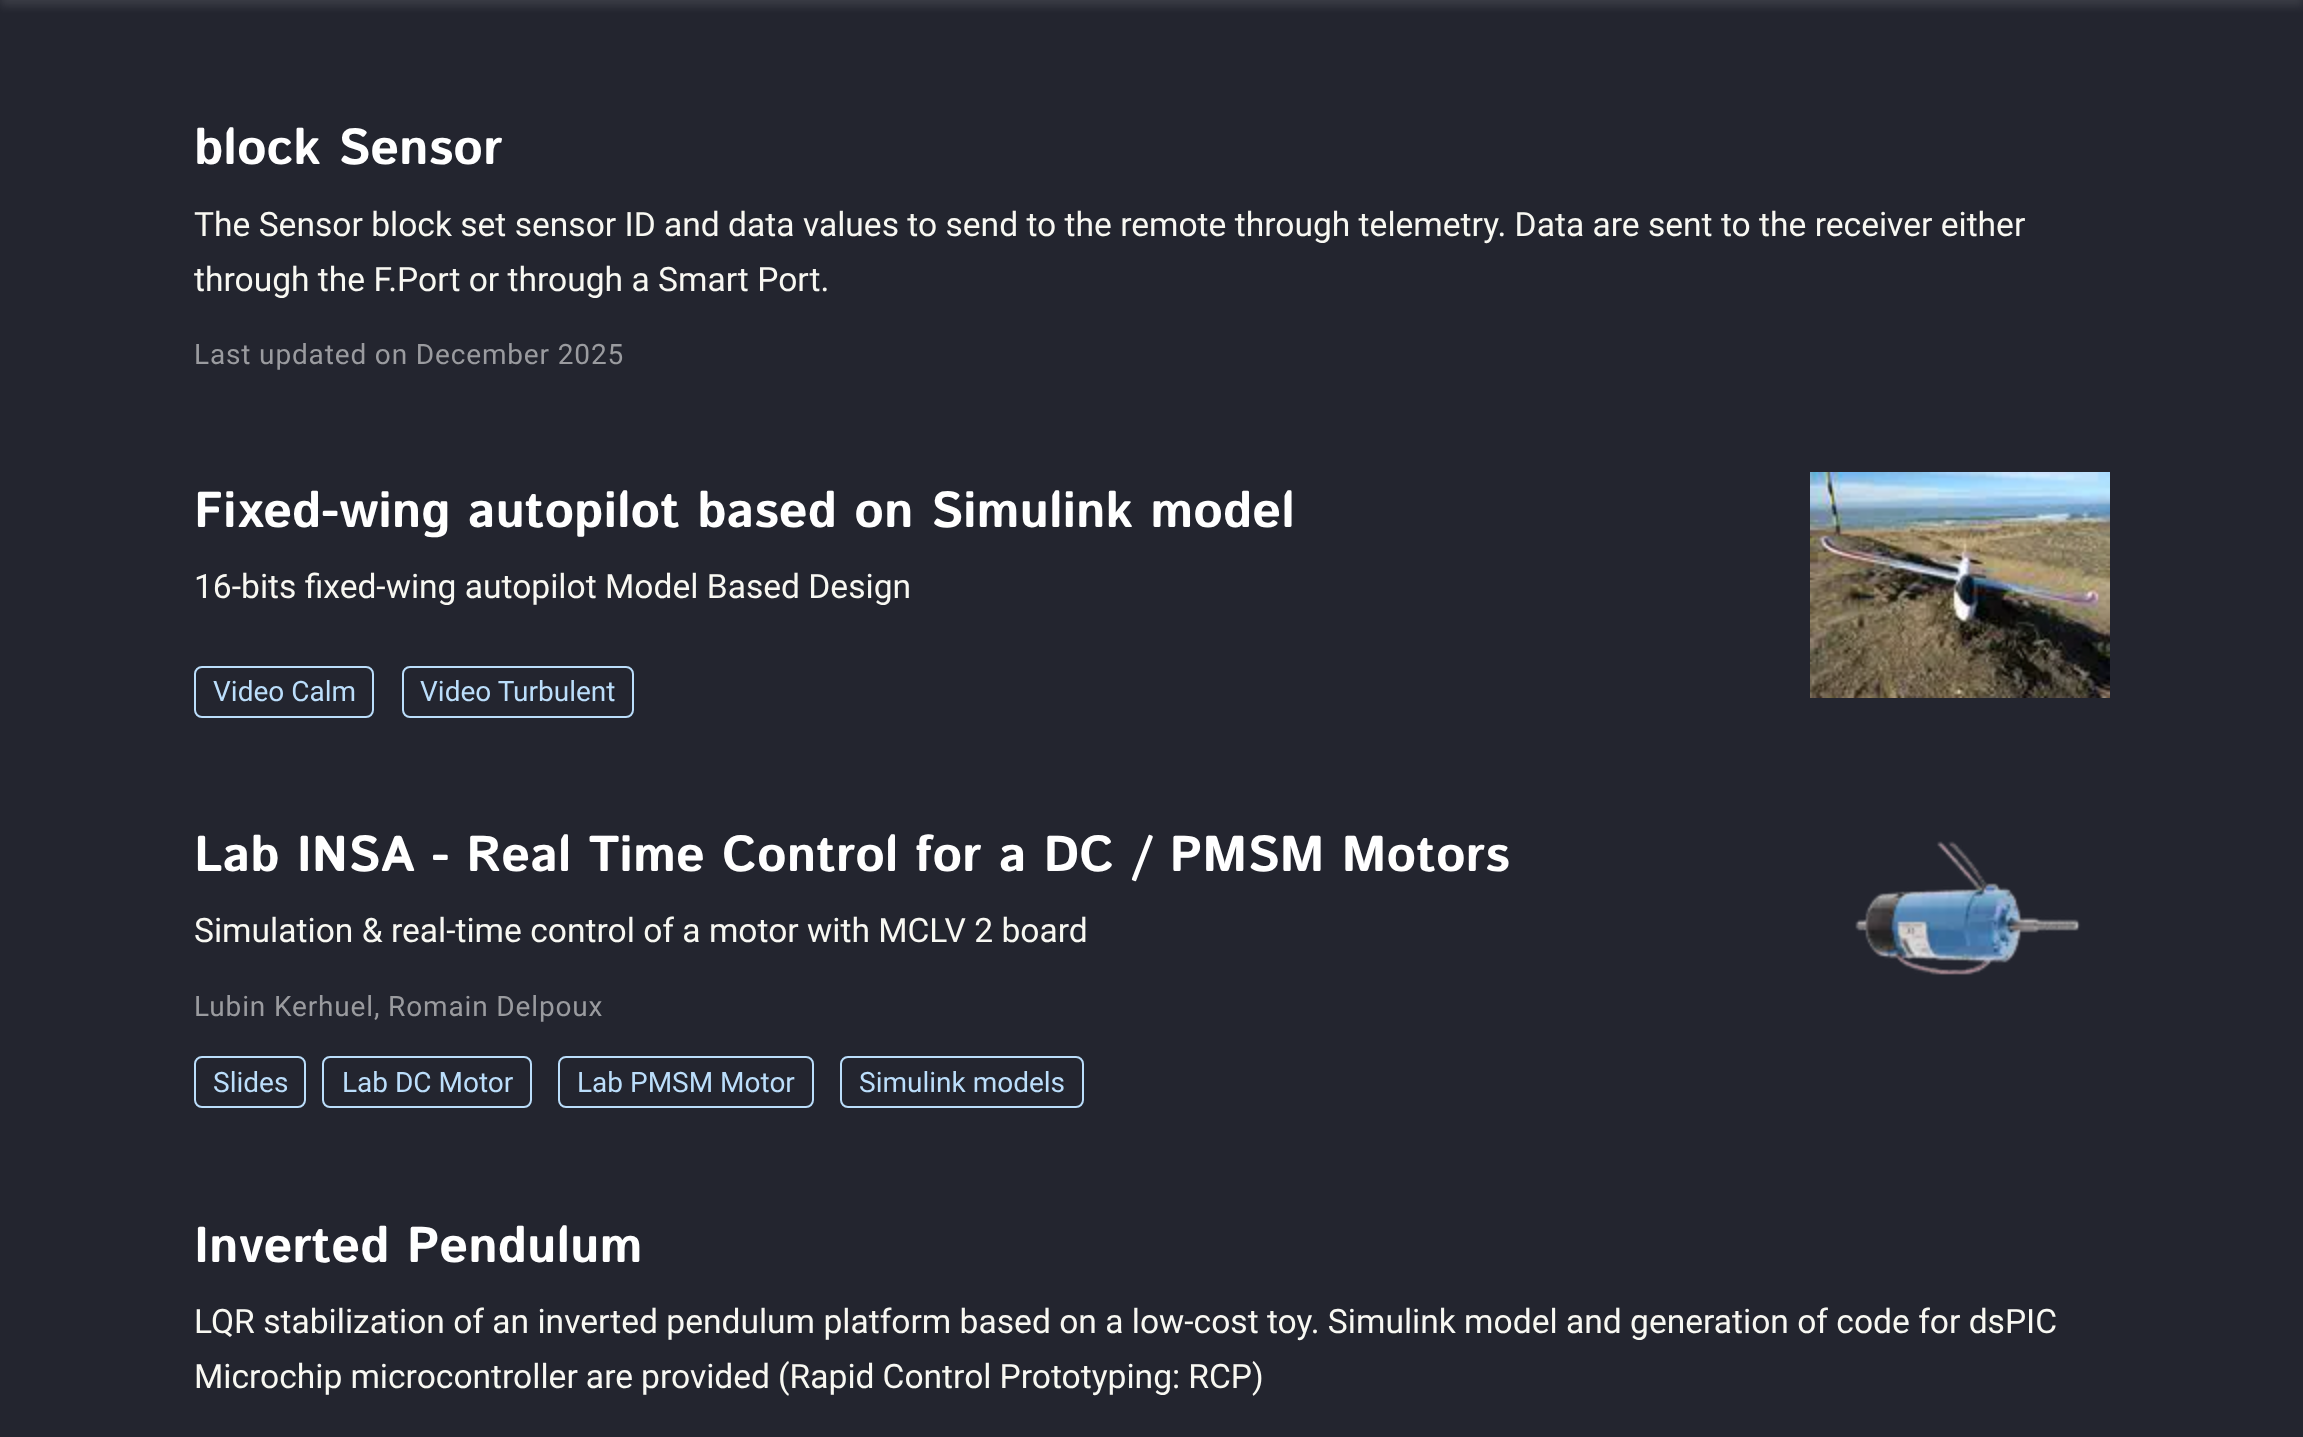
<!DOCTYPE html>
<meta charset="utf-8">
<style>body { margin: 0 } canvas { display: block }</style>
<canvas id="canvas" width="2303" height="1437"></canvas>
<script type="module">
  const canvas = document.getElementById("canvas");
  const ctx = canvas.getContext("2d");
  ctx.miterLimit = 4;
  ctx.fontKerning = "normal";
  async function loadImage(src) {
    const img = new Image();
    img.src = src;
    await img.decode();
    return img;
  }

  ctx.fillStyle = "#23252f";
  ctx.fillRect(0, 0, 2303, 1437);
  ctx.fillStyle = "rgba(255, 255, 255, 0.11)";
  ctx.filter = "blur(5px)";
  ctx.beginPath();
  ctx.rect(0, -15, 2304, 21);
  ctx.fill();
  ctx.filter = "none";
  ctx.font = "bold 50.4px Istok Web";
  ctx.fillStyle = "#ffffff";
  ctx.fillText("block Sensor", 194, 164);
  ctx.font = "33.6px Roboto";
  ctx.fillStyle = "#f8f8f2";
  ctx.fillText("The Sensor block set sensor ID and data values to send to the remote through telemetry. Data are sent to the receiver either", 194, 236);
  ctx.fillText("through the F.Port or through a Smart Port.", 194, 291);
  ctx.letterSpacing = "0.85px";
  ctx.font = "28px Roboto";
  ctx.fillStyle = "#9a9b9f";
  ctx.fillText("Last updated on December 2025", 194, 364);
  ctx.letterSpacing = "0px";
  ctx.font = "bold 50.4px Istok Web";
  ctx.fillStyle = "#ffffff";
  ctx.fillText("Fixed-wing autopilot based on Simulink model", 194, 527);
  ctx.font = "33.6px Roboto";
  ctx.fillStyle = "#f8f8f2";
  ctx.fillText("16-bits fixed-wing autopilot Model Based Design", 194, 598);
  ctx.beginPath();
  ctx.roundRect(195, 667, 178, 50, 7);
  ctx.strokeStyle = "#bbdefb";
  ctx.lineWidth = 2;
  ctx.stroke();
  ctx.font = "28px Roboto";
  ctx.fillStyle = "#bbdefb";
  ctx.fillText("Video Calm", 213, 701);
  ctx.beginPath();
  ctx.roundRect(403, 667, 230, 50, 7);
  ctx.stroke();
  ctx.fillText("Video Turbulent", 420, 701);
  ctx.drawImage(await loadImage("img1.png"), 1810, 472, 300, 226);
  ctx.font = "bold 50.4px Istok Web";
  ctx.fillStyle = "#ffffff";
  ctx.fillText("Lab INSA - Real Time Control for a DC / PMSM Motors", 194, 871);
  ctx.font = "33.6px Roboto";
  ctx.fillStyle = "#f8f8f2";
  ctx.fillText("Simulation & real-time control of a motor with MCLV 2 board", 194, 942);
  ctx.letterSpacing = "0.85px";
  ctx.font = "28px Roboto";
  ctx.fillStyle = "#9a9b9f";
  ctx.fillText("Lubin Kerhuel, Romain Delpoux", 194, 1016);
  ctx.beginPath();
  ctx.roundRect(195, 1057, 110, 50, 7);
  ctx.stroke();
  ctx.letterSpacing = "0px";
  ctx.fillStyle = "#bbdefb";
  ctx.fillText("Slides", 213, 1092);
  ctx.beginPath();
  ctx.roundRect(323, 1057, 208, 50, 7);
  ctx.stroke();
  ctx.fillText("Lab DC Motor", 342, 1092);
  ctx.beginPath();
  ctx.roundRect(559, 1057, 254, 50, 7);
  ctx.stroke();
  ctx.fillText("Lab PMSM Motor", 577, 1092);
  ctx.beginPath();
  ctx.roundRect(841, 1057, 242, 50, 7);
  ctx.stroke();
  ctx.fillText("Simulink models", 859, 1092);
  ctx.drawImage(await loadImage("img2.png"), 1855, 841, 226, 134);
  ctx.font = "bold 50.4px Istok Web";
  ctx.fillStyle = "#ffffff";
  ctx.fillText("Inverted Pendulum", 194, 1262);
  ctx.font = "33.6px Roboto";
  ctx.fillStyle = "#f8f8f2";
  ctx.fillText("LQR stabilization of an inverted pendulum platform based on a low-cost toy. Simulink model and generation of code for dsPIC", 194, 1333);
  ctx.wordSpacing = "-0.25px";
  ctx.fillText("Microchip microcontroller are provided (Rapid Control Prototyping: RCP)", 194, 1388);
</script>
